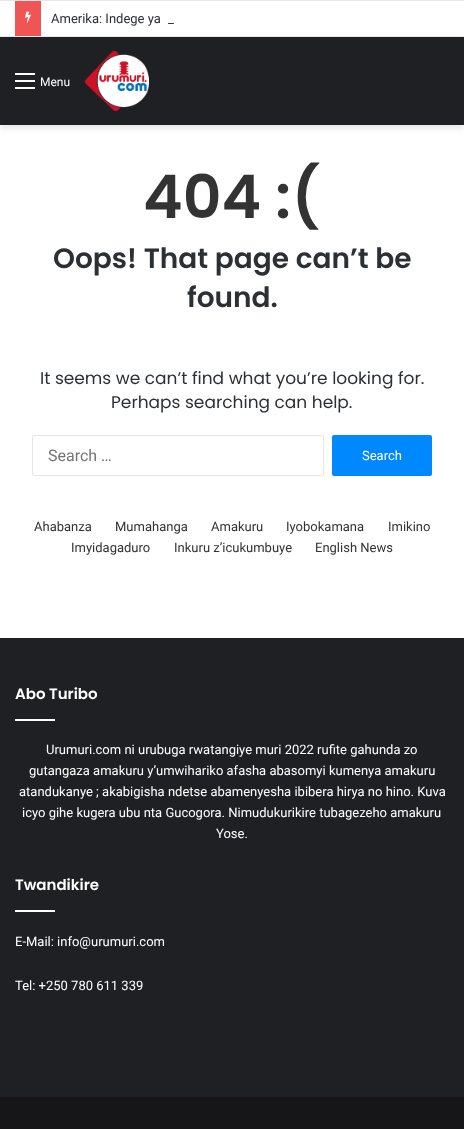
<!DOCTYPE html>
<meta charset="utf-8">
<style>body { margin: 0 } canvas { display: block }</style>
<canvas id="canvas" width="464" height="1129"></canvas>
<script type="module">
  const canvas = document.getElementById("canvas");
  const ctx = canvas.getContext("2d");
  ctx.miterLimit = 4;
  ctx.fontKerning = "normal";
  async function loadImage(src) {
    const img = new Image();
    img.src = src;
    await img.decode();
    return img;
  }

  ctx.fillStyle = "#ffffff";
  ctx.fillRect(0, 0, 464, 1129);
  ctx.fillStyle = "#e6e6e6";
  ctx.fillRect(0, 0, 464, 1);
  ctx.fillStyle = "rgba(0, 0, 0, 0.1)";
  ctx.filter = "blur(3.5px)";
  ctx.beginPath();
  ctx.rect(0, 40, 464, 88);
  ctx.fill();
  ctx.filter = "none";
  ctx.fillStyle = "#e6e6e6";
  ctx.fillRect(0, 36, 464, 1);
  ctx.fillStyle = "#f05555";
  ctx.fillRect(15, 1, 26, 35);
  ctx.drawImage(await loadImage("img1.png"), 25, 11, 6, 12);
  ctx.font = "13px Roboto";
  ctx.fillStyle = "#2c2f34";
  ctx.fillText("Amerika: Indege ya", 51, 23);
  ctx.fillText("_", 168, 23);
  ctx.fillStyle = "#1f2024";
  ctx.fillRect(0, 37, 464, 88);
  ctx.fillStyle = "#ffffff";
  ctx.fillRect(15, 80, 20, 2);
  ctx.fillRect(15, 73, 20, 2);
  ctx.fillRect(15, 87, 20, 2);
  ctx.font = "12px Roboto";
  ctx.fillText("Menu", 40, 86);
  ctx.drawImage(await loadImage("img2.png"), 85, 51, 64, 60);
  ctx.font = "600 60px Poppins";
  ctx.fillStyle = "#333333";
  ctx.fillText("404 :(", 143, 218);
  ctx.font = "600 28px Poppins";
  ctx.fillStyle = "#2c2f34";
  ctx.fillText("Oops! That page can’t be", 53, 268);
  ctx.fillText("found.", 187, 307);
  ctx.font = "17px Poppins";
  ctx.fillText("It seems we can’t find what you’re looking for.", 40, 384);
  ctx.fillText("Perhaps searching can help.", 111, 408);
  ctx.beginPath();
  ctx.roundRect(32.5, 435.5, 291, 40, 1.5);
  ctx.strokeStyle = "#e6e6e6";
  ctx.stroke();
  ctx.font = "16px Roboto";
  ctx.fillStyle = "#757575";
  ctx.fillText("Search …", 48, 461);
  ctx.fillStyle = "#0088ff";
  ctx.beginPath();
  ctx.roundRect(332, 435, 100, 41, 2);
  ctx.fill();
  ctx.font = "13px Roboto";
  ctx.fillStyle = "#ffffff";
  ctx.fillText("Search", 362, 460);
  ctx.fillStyle = "#333333";
  ctx.fillText("Ahabanza", 34, 531);
  ctx.fillText("Mumahanga", 115, 531);
  ctx.fillText("Amakuru", 211, 531);
  ctx.fillText("Iyobokamana", 286, 531);
  ctx.fillText("Imikino", 388, 531);
  ctx.fillText("Imyidagaduro", 71, 552);
  ctx.fillText("Inkuru z’icukumbuye", 174, 552);
  ctx.fillText("English News", 315, 552);
  ctx.fillStyle = "#1f2024";
  ctx.fillRect(0, 638, 464, 459);
  ctx.font = "600 15px Poppins";
  ctx.fillStyle = "#ffffff";
  ctx.fillText("Abo Turibo", 15, 699);
  ctx.fillRect(15, 719, 40, 2);
  ctx.font = "13px Roboto";
  ctx.fillText("Urumuri.com ni urubuga rwatangiye muri 2022 rufite gahunda zo", 46, 754);
  ctx.fillText("gutangaza amakuru y’umwihariko afasha abasomyi kumenya amakuru", 29, 775);
  ctx.fillText("atandukanye ; akabigisha ndetse abamenyesha ibibera hirya no hino. Kuva", 19, 796);
  ctx.fillText("icyo gihe kugera ubu nta Gucogora. Nimudukurikire tubagezeho amakuru", 22, 817);
  ctx.fillText("Yose.", 216, 838);
  ctx.font = "600 15px Poppins";
  ctx.fillText("Twandikire", 15, 890);
  ctx.fillRect(15, 910, 40, 2);
  ctx.font = "13px Roboto";
  ctx.fillText("E-Mail: info@urumuri.com", 15, 946);
  ctx.fillText("Tel: +250 780 611 339", 15, 990);
  ctx.fillStyle = "#161619";
  ctx.fillRect(0, 1097, 464, 32);
</script>
